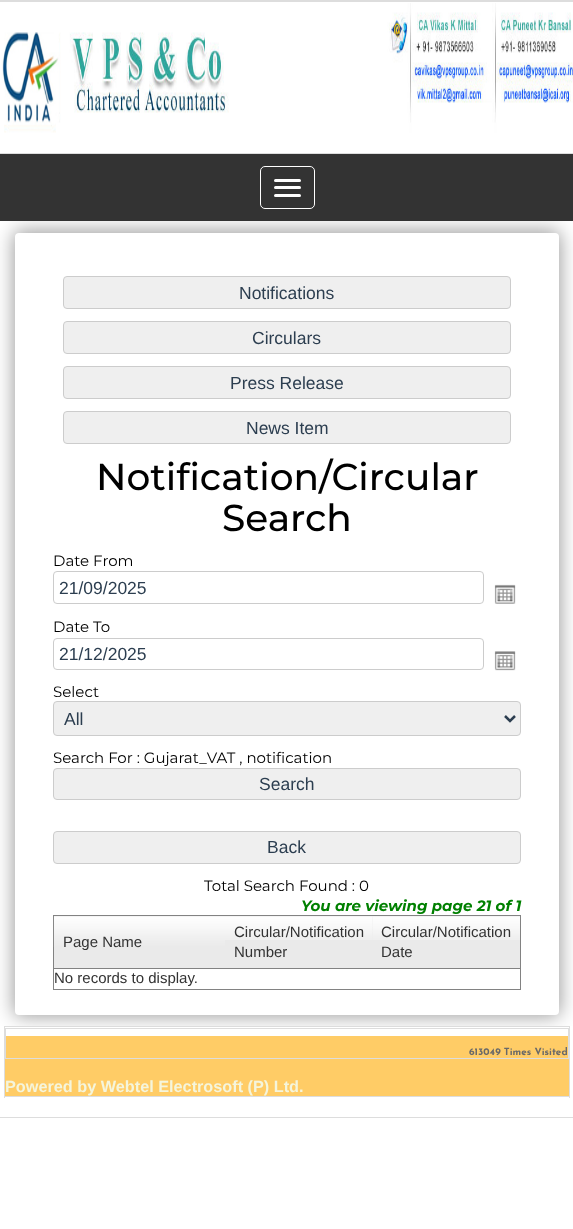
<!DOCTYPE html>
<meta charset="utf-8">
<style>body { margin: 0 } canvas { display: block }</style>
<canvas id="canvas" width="573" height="1229"></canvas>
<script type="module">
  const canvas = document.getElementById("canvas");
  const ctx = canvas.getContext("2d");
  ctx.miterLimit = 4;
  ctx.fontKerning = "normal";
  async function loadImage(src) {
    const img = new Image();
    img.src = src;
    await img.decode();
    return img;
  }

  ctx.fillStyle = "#ffffff";
  ctx.fillRect(0, 0, 573, 1229);
  ctx.strokeStyle = "#dddddd";
  ctx.strokeRect(-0.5, 0.5, 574, 1117);
  ctx.fillStyle = "#dddddd";
  ctx.fillRect(0, 1, 573, 1);
  ctx.fillRect(0, 153, 573, 1);
  ctx.drawImage(await loadImage("img1.png"), 1, 3, 572, 130);
  ctx.fillRect(4, 1026, 566, 1);
  ctx.fillRect(569, 1026, 1, 72);
  ctx.fillRect(4, 1096, 566, 1);
  ctx.fillRect(4, 1026, 1, 72);
  ctx.fillRect(5, 1028, 564, 1);
  ctx.fillStyle = "#ffcc66";
  ctx.fillRect(5, 1036, 564, 60);
  ctx.fillStyle = "#dddddd";
  ctx.fillRect(568, 1028, 1, 31);
  ctx.fillRect(5, 1058, 564, 1);
  ctx.fillRect(5, 1028, 1, 31);
  ctx.save();
  ctx.beginPath();
  ctx.rect(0, 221, 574, 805);
  ctx.clip();
  ctx.fillStyle = "rgba(0, 0, 0, 0.4)";
  ctx.filter = "blur(9.5px)";
  ctx.beginPath();
  ctx.roundRect(14, 231, 546, 785, 5);
  ctx.fill();
  ctx.filter = "none";
  ctx.restore();
  ctx.fillStyle = "#333333";
  ctx.fillRect(0, 154, 573, 67);
  ctx.beginPath();
  ctx.roundRect(260.5, 166.5, 54, 42, 4.5);
  ctx.strokeStyle = "#ffffff";
  ctx.stroke();
  ctx.fillStyle = "#ffffff";
  ctx.beginPath();
  ctx.roundRect(274, 179, 27, 3, 1.5);
  ctx.fill();
  ctx.beginPath();
  ctx.roundRect(274, 186, 27, 3, 1.5);
  ctx.fill();
  ctx.beginPath();
  ctx.roundRect(274, 194, 27, 3, 1.5);
  ctx.fill();
  ctx.beginPath();
  ctx.roundRect(15, 233, 544, 782, 4);
  ctx.fill();
  ctx.fillStyle = "#efefef";
  ctx.beginPath();
  ctx.roundRect(63.5, 276.5, 447, 32, 3.5);
  ctx.fill();
  ctx.strokeStyle = "#cccccc";
  ctx.stroke();
  ctx.font = "17.5px Liberation Sans";
  ctx.fillStyle = "#2c3e50";
  ctx.fillText("Notifications", 239, 299);
  ctx.fillStyle = "#efefef";
  ctx.beginPath();
  ctx.roundRect(63.5, 321.5, 447, 32, 3.5);
  ctx.fill();
  ctx.stroke();
  ctx.fillStyle = "#2c3e50";
  ctx.fillText("Circulars", 252, 344);
  ctx.fillStyle = "#efefef";
  ctx.beginPath();
  ctx.roundRect(63.5, 366.5, 447, 32, 3.5);
  ctx.fill();
  ctx.stroke();
  ctx.fillStyle = "#2c3e50";
  ctx.fillText("Press Release", 230, 389);
  ctx.fillStyle = "#efefef";
  ctx.beginPath();
  ctx.roundRect(63.5, 411.5, 447, 32, 3.5);
  ctx.fill();
  ctx.stroke();
  ctx.fillStyle = "#2c3e50";
  ctx.fillText("News Item", 246, 434);
  ctx.font = "500 37.5px Montserrat";
  ctx.fillStyle = "#000000";
  ctx.fillText("Notification/Circular", 96, 490);
  ctx.fillText("Search", 222, 531);
  ctx.font = "15px Montserrat";
  ctx.fillText("Date From", 53, 566);
  ctx.beginPath();
  ctx.roundRect(53.5, 571.5, 430, 32, 3.5);
  ctx.stroke();
  ctx.font = "17.5px Liberation Sans";
  ctx.fillStyle = "#2c3e50";
  ctx.fillText("21/09/2025", 59, 594);
  ctx.drawImage(await loadImage("img2.png"), 494, 584, 22, 20);
  ctx.font = "15px Montserrat";
  ctx.fillStyle = "#000000";
  ctx.fillText("Date To", 53, 632);
  ctx.beginPath();
  ctx.roundRect(53.5, 638.5, 430, 31, 3.5);
  ctx.stroke();
  ctx.font = "17.5px Liberation Sans";
  ctx.fillStyle = "#2c3e50";
  ctx.fillText("21/12/2025", 59, 660);
  ctx.drawImage(await loadImage("img3.png"), 494, 651, 22, 20);
  ctx.font = "15px Montserrat";
  ctx.fillStyle = "#000000";
  ctx.fillText("Select", 53, 697);
  ctx.fillStyle = "#efefef";
  ctx.beginPath();
  ctx.roundRect(53.5, 701.5, 467, 34, 3.5);
  ctx.fill();
  ctx.stroke();
  ctx.beginPath();
  ctx.moveTo(505, 716);
  ctx.lineTo(510, 721);
  ctx.lineTo(515, 716);
  ctx.strokeStyle = "#2c3e50";
  ctx.lineWidth = 2.5;
  ctx.stroke();
  ctx.font = "17.5px Liberation Sans";
  ctx.fillStyle = "#2c3e50";
  ctx.fillText("All", 64, 725);
  ctx.font = "15px Montserrat";
  ctx.fillStyle = "#000000";
  ctx.fillText("Search For : Gujarat_VAT , notification", 53, 763);
  ctx.fillStyle = "#efefef";
  ctx.beginPath();
  ctx.roundRect(53.5, 768.5, 467, 31, 3.5);
  ctx.fill();
  ctx.strokeStyle = "#cccccc";
  ctx.lineWidth = 1;
  ctx.stroke();
  ctx.font = "17.5px Liberation Sans";
  ctx.fillStyle = "#2c3e50";
  ctx.fillText("Search", 259, 790);
  ctx.fillStyle = "#efefef";
  ctx.beginPath();
  ctx.roundRect(53.5, 831.5, 467, 32, 3.5);
  ctx.fill();
  ctx.stroke();
  ctx.fillStyle = "#2c3e50";
  ctx.fillText("Back", 267, 853);
  ctx.font = "15px Montserrat";
  ctx.fillStyle = "#000000";
  ctx.fillText("Total Search Found : 0", 204, 891);
  ctx.font = "italic bold 15px Montserrat";
  ctx.fillStyle = "#008000";
  ctx.fillText("You are viewing page 21 of 1", 301, 911);
  ctx.strokeStyle = "#828282";
  ctx.strokeRect(53.5, 915.5, 467, 74);
  ctx.fillStyle = "#eaeaea";
  ctx.fillRect(54, 916, 466, 52);
  ctx.drawImage(await loadImage("img4.png"), 53, 916, 172, 31);
  ctx.fillStyle = "#828282";
  ctx.fillRect(54, 968, 466, 1);
  ctx.font = "15px Liberation Sans";
  ctx.fillStyle = "#333333";
  ctx.fillText("Page Name", 63, 947);
  ctx.drawImage(await loadImage("img5.png"), 225, 916, 148, 24);
  ctx.fillText("Circular/Notification", 234, 937);
  ctx.fillText("Number", 234, 957);
  ctx.drawImage(await loadImage("img6.png"), 372, 916, 148, 24);
  ctx.fillText("Circular/Notification", 381, 937);
  ctx.fillText("Date", 381, 957);
  ctx.fillText("No records to display.", 54, 983);
  ctx.font = "bold 10px Josefin Sans";
  ctx.fillStyle = "#696969";
  ctx.fillText("613049 Times Visited", 469, 1055);
  ctx.font = "bold 16.25px Liberation Sans";
  ctx.fillStyle = "#f5f5dc";
  ctx.fillText("Powered by Webtel Electrosoft (P) Ltd.", 5, 1092);
</script>
